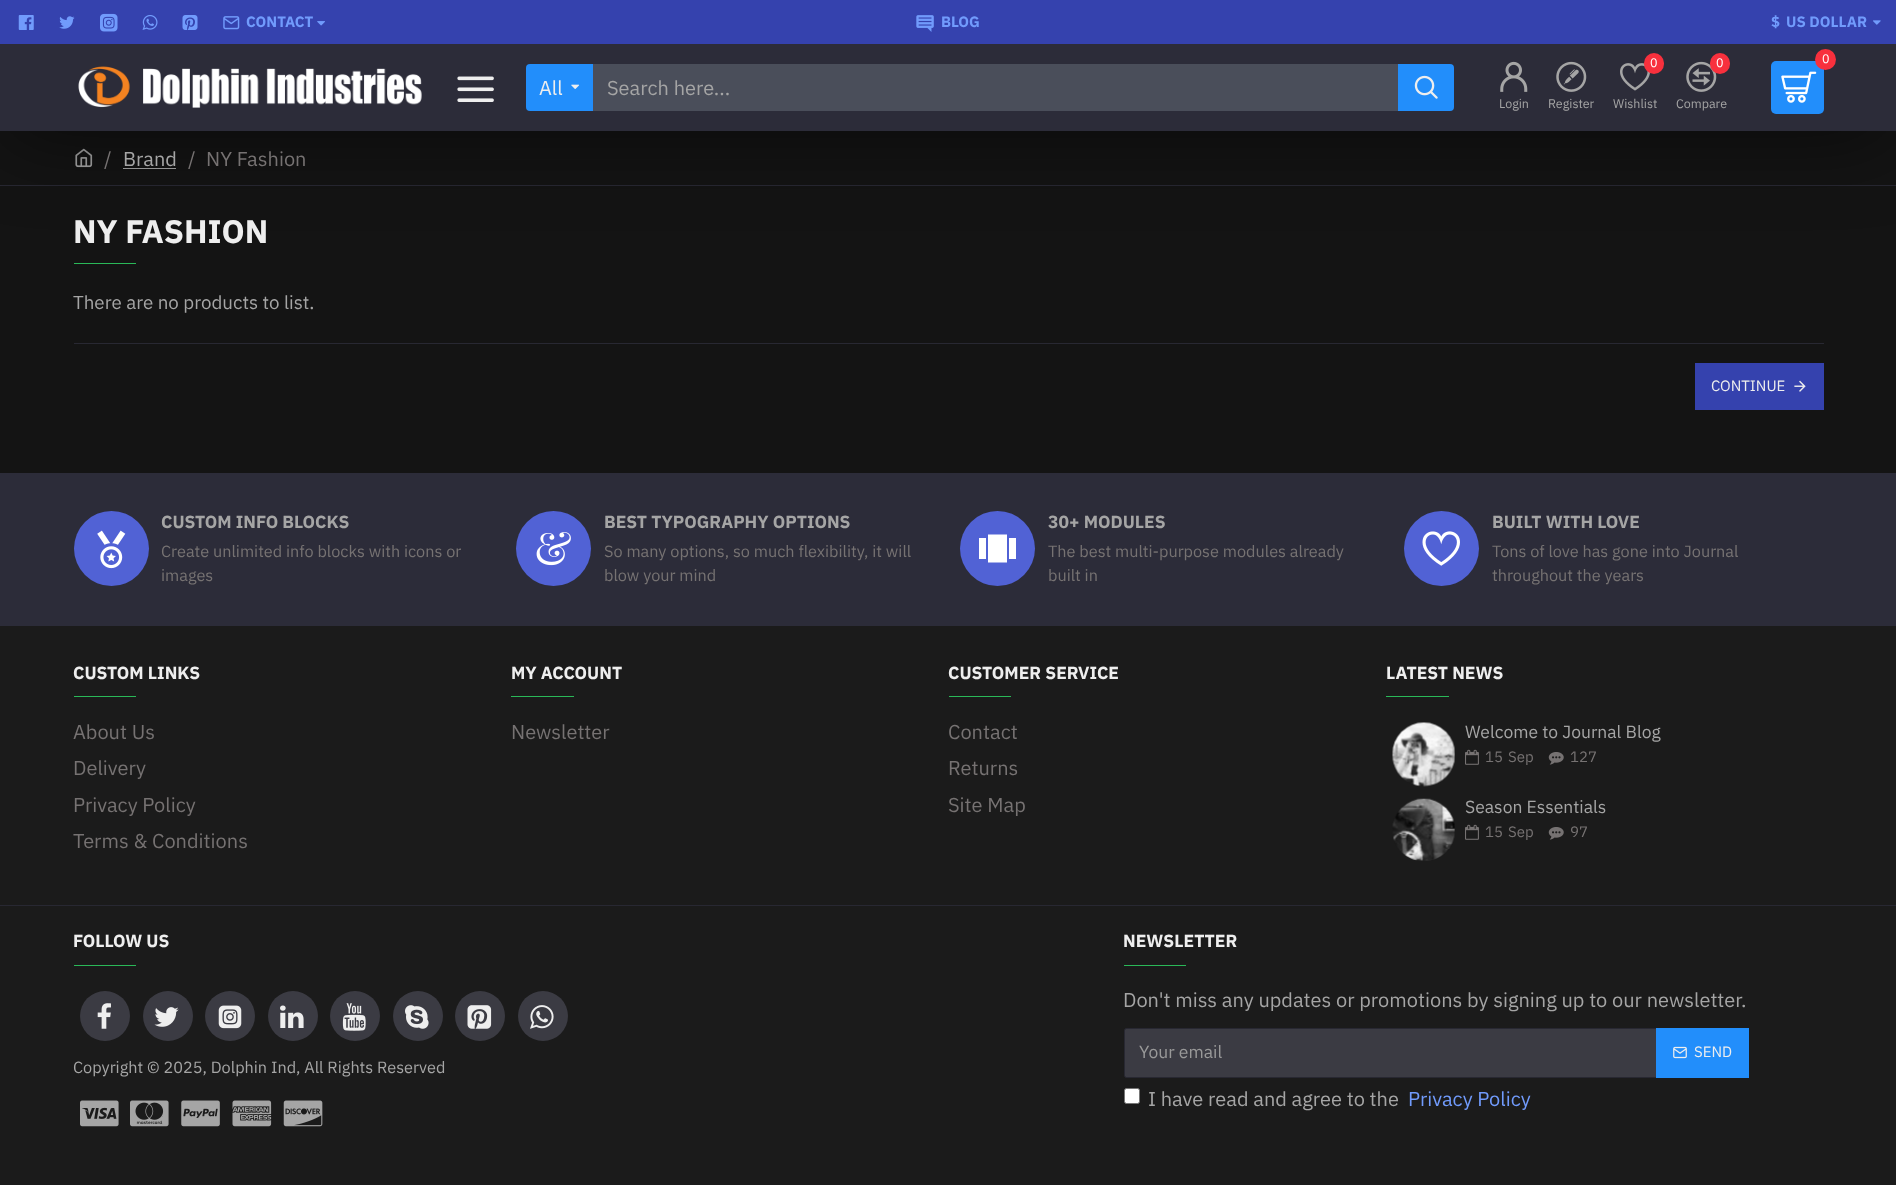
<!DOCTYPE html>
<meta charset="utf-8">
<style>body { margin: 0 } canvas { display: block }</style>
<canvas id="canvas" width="1896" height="1185"></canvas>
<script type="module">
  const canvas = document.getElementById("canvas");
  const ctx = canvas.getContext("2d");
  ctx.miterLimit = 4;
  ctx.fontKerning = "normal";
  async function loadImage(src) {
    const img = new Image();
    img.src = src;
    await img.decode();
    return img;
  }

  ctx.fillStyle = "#141414";
  ctx.fillRect(0, 0, 1896, 1185);
  ctx.drawImage(await loadImage("img19.png"), 75, 148, 18, 20);
  ctx.fillStyle = "#a5a5a5";
  ctx.fillRect(123, 168, 53, 1);
  ctx.fillStyle = "#282832";
  ctx.fillRect(0, 185, 1896, 1);
  ctx.fillStyle = "rgba(0, 0, 0, 0.5)";
  ctx.filter = "blur(40.5px)";
  ctx.beginPath();
  ctx.rect(6, 19, 1884, 119);
  ctx.fill();
  ctx.filter = "none";
  ctx.fillStyle = "#2c2c39";
  ctx.fillRect(0, 44, 1896, 87);
  ctx.fillStyle = "#3542ae";
  ctx.fillRect(0, 0, 1896, 44);
  ctx.drawImage(await loadImage("img1.png"), 18, 15, 16, 15);
  ctx.drawImage(await loadImage("img2.png"), 59, 16, 16, 13);
  ctx.drawImage(await loadImage("img3.png"), 100, 13, 18, 19);
  ctx.drawImage(await loadImage("img4.png"), 142, 15, 16, 15);
  ctx.drawImage(await loadImage("img5.png"), 182, 15, 16, 15);
  ctx.drawImage(await loadImage("img6.png"), 223, 16, 17, 14);
  ctx.font = "bold 15px IBM Plex Sans";
  ctx.fillStyle = "#719bfc";
  ctx.fillText("CONTACT", 246, 27);
  ctx.drawImage(await loadImage("img7.png"), 317, 21, 8, 5);
  ctx.drawImage(await loadImage("img8.png"), 916, 15, 18, 17);
  ctx.fillText("BLOG", 941, 27);
  ctx.fillText("$", 1771, 27);
  ctx.fillText("US DOLLAR", 1786, 27);
  ctx.drawImage(await loadImage("img9.png"), 1873, 20, 8, 5);
  ctx.drawImage(await loadImage("img10.png"), 78, 66, 344, 42);
  ctx.drawImage(await loadImage("img11.png"), 457, 76, 37, 26);
  ctx.fillStyle = "#228efb";
  ctx.beginPath();
  ctx.roundRect(526, 64, 67, 47, [4, 0, 0, 4]);
  ctx.fill();
  ctx.font = "20px IBM Plex Sans";
  ctx.fillStyle = "#eeeeee";
  ctx.fillText("All", 539, 95);
  ctx.drawImage(await loadImage("img12.png"), 571, 84, 9, 5);
  ctx.fillStyle = "#4a4e5a";
  ctx.fillRect(593, 64, 805, 47);
  ctx.fillStyle = "#a5a5a5";
  ctx.fillText("Search here...", 607, 95);
  ctx.fillStyle = "#228efb";
  ctx.beginPath();
  ctx.roundRect(1398, 64, 56, 47, [0, 4, 4, 0]);
  ctx.fill();
  ctx.drawImage(await loadImage("img13.png"), 1414, 75, 24, 24);
  ctx.drawImage(await loadImage("img14.png"), 1500, 61, 28, 31);
  ctx.font = "12.5px IBM Plex Sans";
  ctx.fillStyle = "#a5a5a5";
  ctx.fillText("Login", 1499, 108);
  ctx.drawImage(await loadImage("img15.png"), 1556, 61, 31, 31);
  ctx.fillText("Register", 1548, 108);
  ctx.drawImage(await loadImage("img16.png"), 1620, 63, 30, 28);
  ctx.fillStyle = "#f8303d";
  ctx.beginPath();
  ctx.roundRect(1644, 53, 20, 21, 10);
  ctx.fill();
  ctx.fillStyle = "#ffffff";
  ctx.fillText("0", 1650, 67);
  ctx.fillStyle = "#a5a5a5";
  ctx.fillText("Wishlist", 1613, 108);
  ctx.drawImage(await loadImage("img17.png"), 1686, 61, 31, 31);
  ctx.fillStyle = "#f8303d";
  ctx.beginPath();
  ctx.roundRect(1710, 53, 20, 21, 10);
  ctx.fill();
  ctx.fillStyle = "#ffffff";
  ctx.fillText("0", 1716, 67);
  ctx.fillStyle = "#a5a5a5";
  ctx.fillText("Compare", 1676, 108);
  ctx.fillStyle = "#228efb";
  ctx.beginPath();
  ctx.roundRect(1771, 61, 53, 53, 5);
  ctx.fill();
  ctx.fillStyle = "#f8303d";
  ctx.beginPath();
  ctx.arc(1825.5, 59.5, 10.5, 0, Math.PI * 2);
  ctx.fill();
  ctx.fillStyle = "#ffffff";
  ctx.fillText("0", 1822, 63);
  ctx.drawImage(await loadImage("img18.png"), 1781, 71, 36, 32);
  ctx.font = "20px IBM Plex Sans";
  ctx.fillStyle = "#767272";
  ctx.fillText("/", 104, 166);
  ctx.fillStyle = "#a5a5a5";
  ctx.fillText("Brand", 123, 166);
  ctx.fillStyle = "#767272";
  ctx.fillText("/", 188, 166);
  ctx.fillText("NY Fashion", 206, 166);
  ctx.font = "bold 32.5px IBM Plex Sans";
  ctx.fillStyle = "#eeeeee";
  ctx.fillText("NY FASHION", 73, 243);
  ctx.fillStyle = "#2ab858";
  ctx.fillRect(74, 263, 62, 1);
  ctx.font = "18.75px IBM Plex Sans";
  ctx.fillStyle = "#a5a5a5";
  ctx.fillText("There are no products to list.", 73, 309);
  ctx.fillStyle = "#282832";
  ctx.fillRect(74, 343, 1750, 1);
  ctx.fillStyle = "#3542ae";
  ctx.fillRect(1695, 363, 129, 47);
  ctx.font = "15px IBM Plex Sans";
  ctx.fillStyle = "#eeeeee";
  ctx.fillText("CONTINUE", 1711, 391);
  ctx.drawImage(await loadImage("img20.png"), 1794, 380, 12, 12);
  ctx.fillStyle = "#1b1b1b";
  ctx.fillRect(0, 626, 1896, 559);
  ctx.fillStyle = "#2c2c39";
  ctx.fillRect(0, 473, 1896, 153);
  ctx.fillStyle = "#5162d5";
  ctx.beginPath();
  ctx.arc(111.5, 548.5, 37.5, 0, Math.PI * 2);
  ctx.fill();
  ctx.drawImage(await loadImage("img21.png"), 97, 530, 29, 39);
  ctx.font = "bold 17.5px IBM Plex Sans";
  ctx.fillStyle = "#a5a5a5";
  ctx.fillText("CUSTOM INFO BLOCKS", 161, 528);
  ctx.font = "16.25px IBM Plex Sans";
  ctx.fillStyle = "#767272";
  ctx.fillText("Create unlimited info blocks with icons or", 161, 557);
  ctx.fillText("images", 161, 581);
  ctx.fillStyle = "#5162d5";
  ctx.beginPath();
  ctx.arc(553.5, 548.5, 37.5, 0, Math.PI * 2);
  ctx.fill();
  ctx.drawImage(await loadImage("img22.png"), 536, 532, 35, 34);
  ctx.font = "bold 17.5px IBM Plex Sans";
  ctx.fillStyle = "#a5a5a5";
  ctx.fillText("BEST TYPOGRAPHY OPTIONS", 604, 528);
  ctx.font = "16.25px IBM Plex Sans";
  ctx.fillStyle = "#767272";
  ctx.fillText("So many options, so much flexibility, it will", 604, 557);
  ctx.fillText("blow your mind", 604, 581);
  ctx.fillStyle = "#5162d5";
  ctx.beginPath();
  ctx.arc(997.5, 548.5, 37.5, 0, Math.PI * 2);
  ctx.fill();
  ctx.fillStyle = "#ffffff";
  ctx.beginPath();
  ctx.moveTo(1009, 538);
  ctx.lineTo(1016, 538);
  ctx.lineTo(1016, 559);
  ctx.lineTo(1009, 559);
  ctx.closePath();
  ctx.moveTo(979, 559);
  ctx.lineTo(979, 538);
  ctx.lineTo(986, 538);
  ctx.lineTo(986, 559);
  ctx.closePath();
  ctx.moveTo(988, 562.5);
  ctx.lineTo(988, 534.5);
  ctx.lineTo(1007, 534.5);
  ctx.lineTo(1007, 562.5);
  ctx.closePath();
  ctx.fill();
  ctx.font = "bold 17.5px IBM Plex Sans";
  ctx.fillStyle = "#a5a5a5";
  ctx.fillText("30+ MODULES", 1048, 528);
  ctx.font = "16.25px IBM Plex Sans";
  ctx.fillStyle = "#767272";
  ctx.fillText("The best multi-purpose modules already", 1048, 557);
  ctx.fillText("built in", 1048, 581);
  ctx.fillStyle = "#5162d5";
  ctx.beginPath();
  ctx.arc(1441.5, 548.5, 37.5, 0, Math.PI * 2);
  ctx.fill();
  ctx.drawImage(await loadImage("img23.png"), 1422, 531, 38, 35);
  ctx.font = "bold 17.5px IBM Plex Sans";
  ctx.fillStyle = "#a5a5a5";
  ctx.fillText("BUILT WITH LOVE", 1492, 528);
  ctx.font = "16.25px IBM Plex Sans";
  ctx.fillStyle = "#767272";
  ctx.fillText("Tons of love has gone into Journal", 1492, 557);
  ctx.fillText("throughout the years", 1492, 581);
  ctx.font = "bold 17.5px IBM Plex Sans";
  ctx.fillStyle = "#eeeeee";
  ctx.fillText("CUSTOM LINKS", 73, 679);
  ctx.fillStyle = "#2ab858";
  ctx.fillRect(74, 696, 62, 1);
  ctx.font = "20px IBM Plex Sans";
  ctx.fillStyle = "#767272";
  ctx.fillText("About Us", 73, 739);
  ctx.fillText("Delivery", 73, 775);
  ctx.fillText("Privacy Policy", 73, 812);
  ctx.fillText("Terms & Conditions", 73, 848);
  ctx.font = "bold 17.5px IBM Plex Sans";
  ctx.fillStyle = "#eeeeee";
  ctx.fillText("MY ACCOUNT", 511, 679);
  ctx.fillStyle = "#2ab858";
  ctx.fillRect(511, 696, 63, 1);
  ctx.font = "20px IBM Plex Sans";
  ctx.fillStyle = "#767272";
  ctx.fillText("Newsletter", 511, 739);
  ctx.font = "bold 17.5px IBM Plex Sans";
  ctx.fillStyle = "#eeeeee";
  ctx.fillText("CUSTOMER SERVICE", 948, 679);
  ctx.fillStyle = "#2ab858";
  ctx.fillRect(949, 696, 62, 1);
  ctx.font = "20px IBM Plex Sans";
  ctx.fillStyle = "#767272";
  ctx.fillText("Contact", 948, 739);
  ctx.fillText("Returns", 948, 775);
  ctx.fillText("Site Map", 948, 812);
  ctx.font = "bold 17.5px IBM Plex Sans";
  ctx.fillStyle = "#eeeeee";
  ctx.fillText("LATEST NEWS", 1386, 679);
  ctx.fillStyle = "#2ab858";
  ctx.fillRect(1386, 696, 63, 1);
  ctx.drawImage(await loadImage("img24.png"), 1392, 722, 63, 65);
  ctx.font = "17.5px IBM Plex Sans";
  ctx.fillStyle = "#a5a5a5";
  ctx.fillText("Welcome to Journal Blog", 1465, 738);
  ctx.drawImage(await loadImage("img25.png"), 1465, 749, 14, 16);
  ctx.font = "15px IBM Plex Sans";
  ctx.fillStyle = "#767272";
  ctx.fillText("15", 1485, 762);
  ctx.fillText("Sep", 1508, 762);
  ctx.drawImage(await loadImage("img26.png"), 1548, 752, 16, 13);
  ctx.fillText("127", 1570, 762);
  ctx.drawImage(await loadImage("img27.png"), 1392, 798, 63, 63);
  ctx.font = "17.5px IBM Plex Sans";
  ctx.fillStyle = "#a5a5a5";
  ctx.fillText("Season Essentials", 1465, 813);
  ctx.drawImage(await loadImage("img25.png"), 1465, 824, 14, 16);
  ctx.font = "15px IBM Plex Sans";
  ctx.fillStyle = "#767272";
  ctx.fillText("15", 1485, 837);
  ctx.fillText("Sep", 1508, 837);
  ctx.drawImage(await loadImage("img26.png"), 1548, 827, 16, 13);
  ctx.fillText("97", 1570, 837);
  ctx.fillStyle = "#282832";
  ctx.fillRect(0, 905, 1896, 1);
  ctx.font = "bold 17.5px IBM Plex Sans";
  ctx.fillStyle = "#eeeeee";
  ctx.fillText("FOLLOW US", 73, 947);
  ctx.fillStyle = "#2ab858";
  ctx.fillRect(74, 965, 62, 1);
  ctx.fillStyle = "#3b3b43";
  ctx.beginPath();
  ctx.arc(105, 1016, 25, 0, Math.PI * 2);
  ctx.fill();
  ctx.drawImage(await loadImage("img28.png"), 97, 1003, 14, 26);
  ctx.beginPath();
  ctx.arc(168, 1016, 25, 0, Math.PI * 2);
  ctx.fill();
  ctx.drawImage(await loadImage("img29.png"), 154, 1007, 25, 20);
  ctx.beginPath();
  ctx.arc(230, 1016, 25, 0, Math.PI * 2);
  ctx.fill();
  ctx.drawImage(await loadImage("img30.png"), 218, 1005, 24, 24);
  ctx.beginPath();
  ctx.arc(293, 1016, 25, 0, Math.PI * 2);
  ctx.fill();
  ctx.drawImage(await loadImage("img31.png"), 280, 1005, 24, 23);
  ctx.beginPath();
  ctx.arc(355, 1016, 25, 0, Math.PI * 2);
  ctx.fill();
  ctx.drawImage(await loadImage("img32.png"), 342, 1003, 24, 28);
  ctx.beginPath();
  ctx.arc(418, 1016, 25, 0, Math.PI * 2);
  ctx.fill();
  ctx.drawImage(await loadImage("img33.png"), 405, 1005, 24, 24);
  ctx.beginPath();
  ctx.arc(480, 1016, 25, 0, Math.PI * 2);
  ctx.fill();
  ctx.drawImage(await loadImage("img34.png"), 467, 1005, 25, 24);
  ctx.beginPath();
  ctx.arc(543, 1016, 25, 0, Math.PI * 2);
  ctx.fill();
  ctx.drawImage(await loadImage("img35.png"), 530, 1005, 24, 24);
  ctx.font = "16.25px IBM Plex Sans";
  ctx.fillStyle = "#a5a5a5";
  ctx.fillText("Copyright © 2025, Dolphin Ind, All Rights Reserved", 73, 1073);
  ctx.drawImage(await loadImage("img36.png"), 80, 1100, 39, 27);
  ctx.drawImage(await loadImage("img37.png"), 130, 1100, 39, 27);
  ctx.drawImage(await loadImage("img38.png"), 181, 1100, 39, 27);
  ctx.drawImage(await loadImage("img39.png"), 232, 1100, 40, 27);
  ctx.drawImage(await loadImage("img40.png"), 283, 1100, 40, 27);
  ctx.font = "bold 17.5px IBM Plex Sans";
  ctx.fillStyle = "#eeeeee";
  ctx.fillText("NEWSLETTER", 1123, 947);
  ctx.fillStyle = "#2ab858";
  ctx.fillRect(1124, 965, 62, 1);
  ctx.font = "20px IBM Plex Sans";
  ctx.fillStyle = "#a5a5a5";
  ctx.fillText("Don't miss any updates or promotions by signing up to our newsletter.", 1123, 1007);
  ctx.fillStyle = "#3b3b43";
  ctx.beginPath();
  ctx.roundRect(1124.5, 1028.5, 624, 49, 2);
  ctx.fill();
  ctx.strokeStyle = "#282832";
  ctx.stroke();
  ctx.font = "17.5px IBM Plex Sans";
  ctx.fillStyle = "#999999";
  ctx.fillText("Your email", 1139, 1058);
  ctx.fillStyle = "#228efb";
  ctx.fillRect(1656, 1028, 93, 50);
  ctx.drawImage(await loadImage("img41.png"), 1673, 1046, 14, 13);
  ctx.font = "15px IBM Plex Sans";
  ctx.fillStyle = "#eeeeee";
  ctx.fillText("SEND", 1694, 1057);
  ctx.fillStyle = "#ffffff";
  ctx.beginPath();
  ctx.roundRect(1124.5, 1088.5, 15, 15, 2);
  ctx.fill();
  ctx.strokeStyle = "#767676";
  ctx.stroke();
  ctx.font = "20px IBM Plex Sans";
  ctx.fillStyle = "#a5a5a5";
  ctx.fillText("I have read and agree to the", 1148, 1106);
  ctx.fillStyle = "#719bfc";
  ctx.fillText("Privacy Policy", 1408, 1106);
</script>
